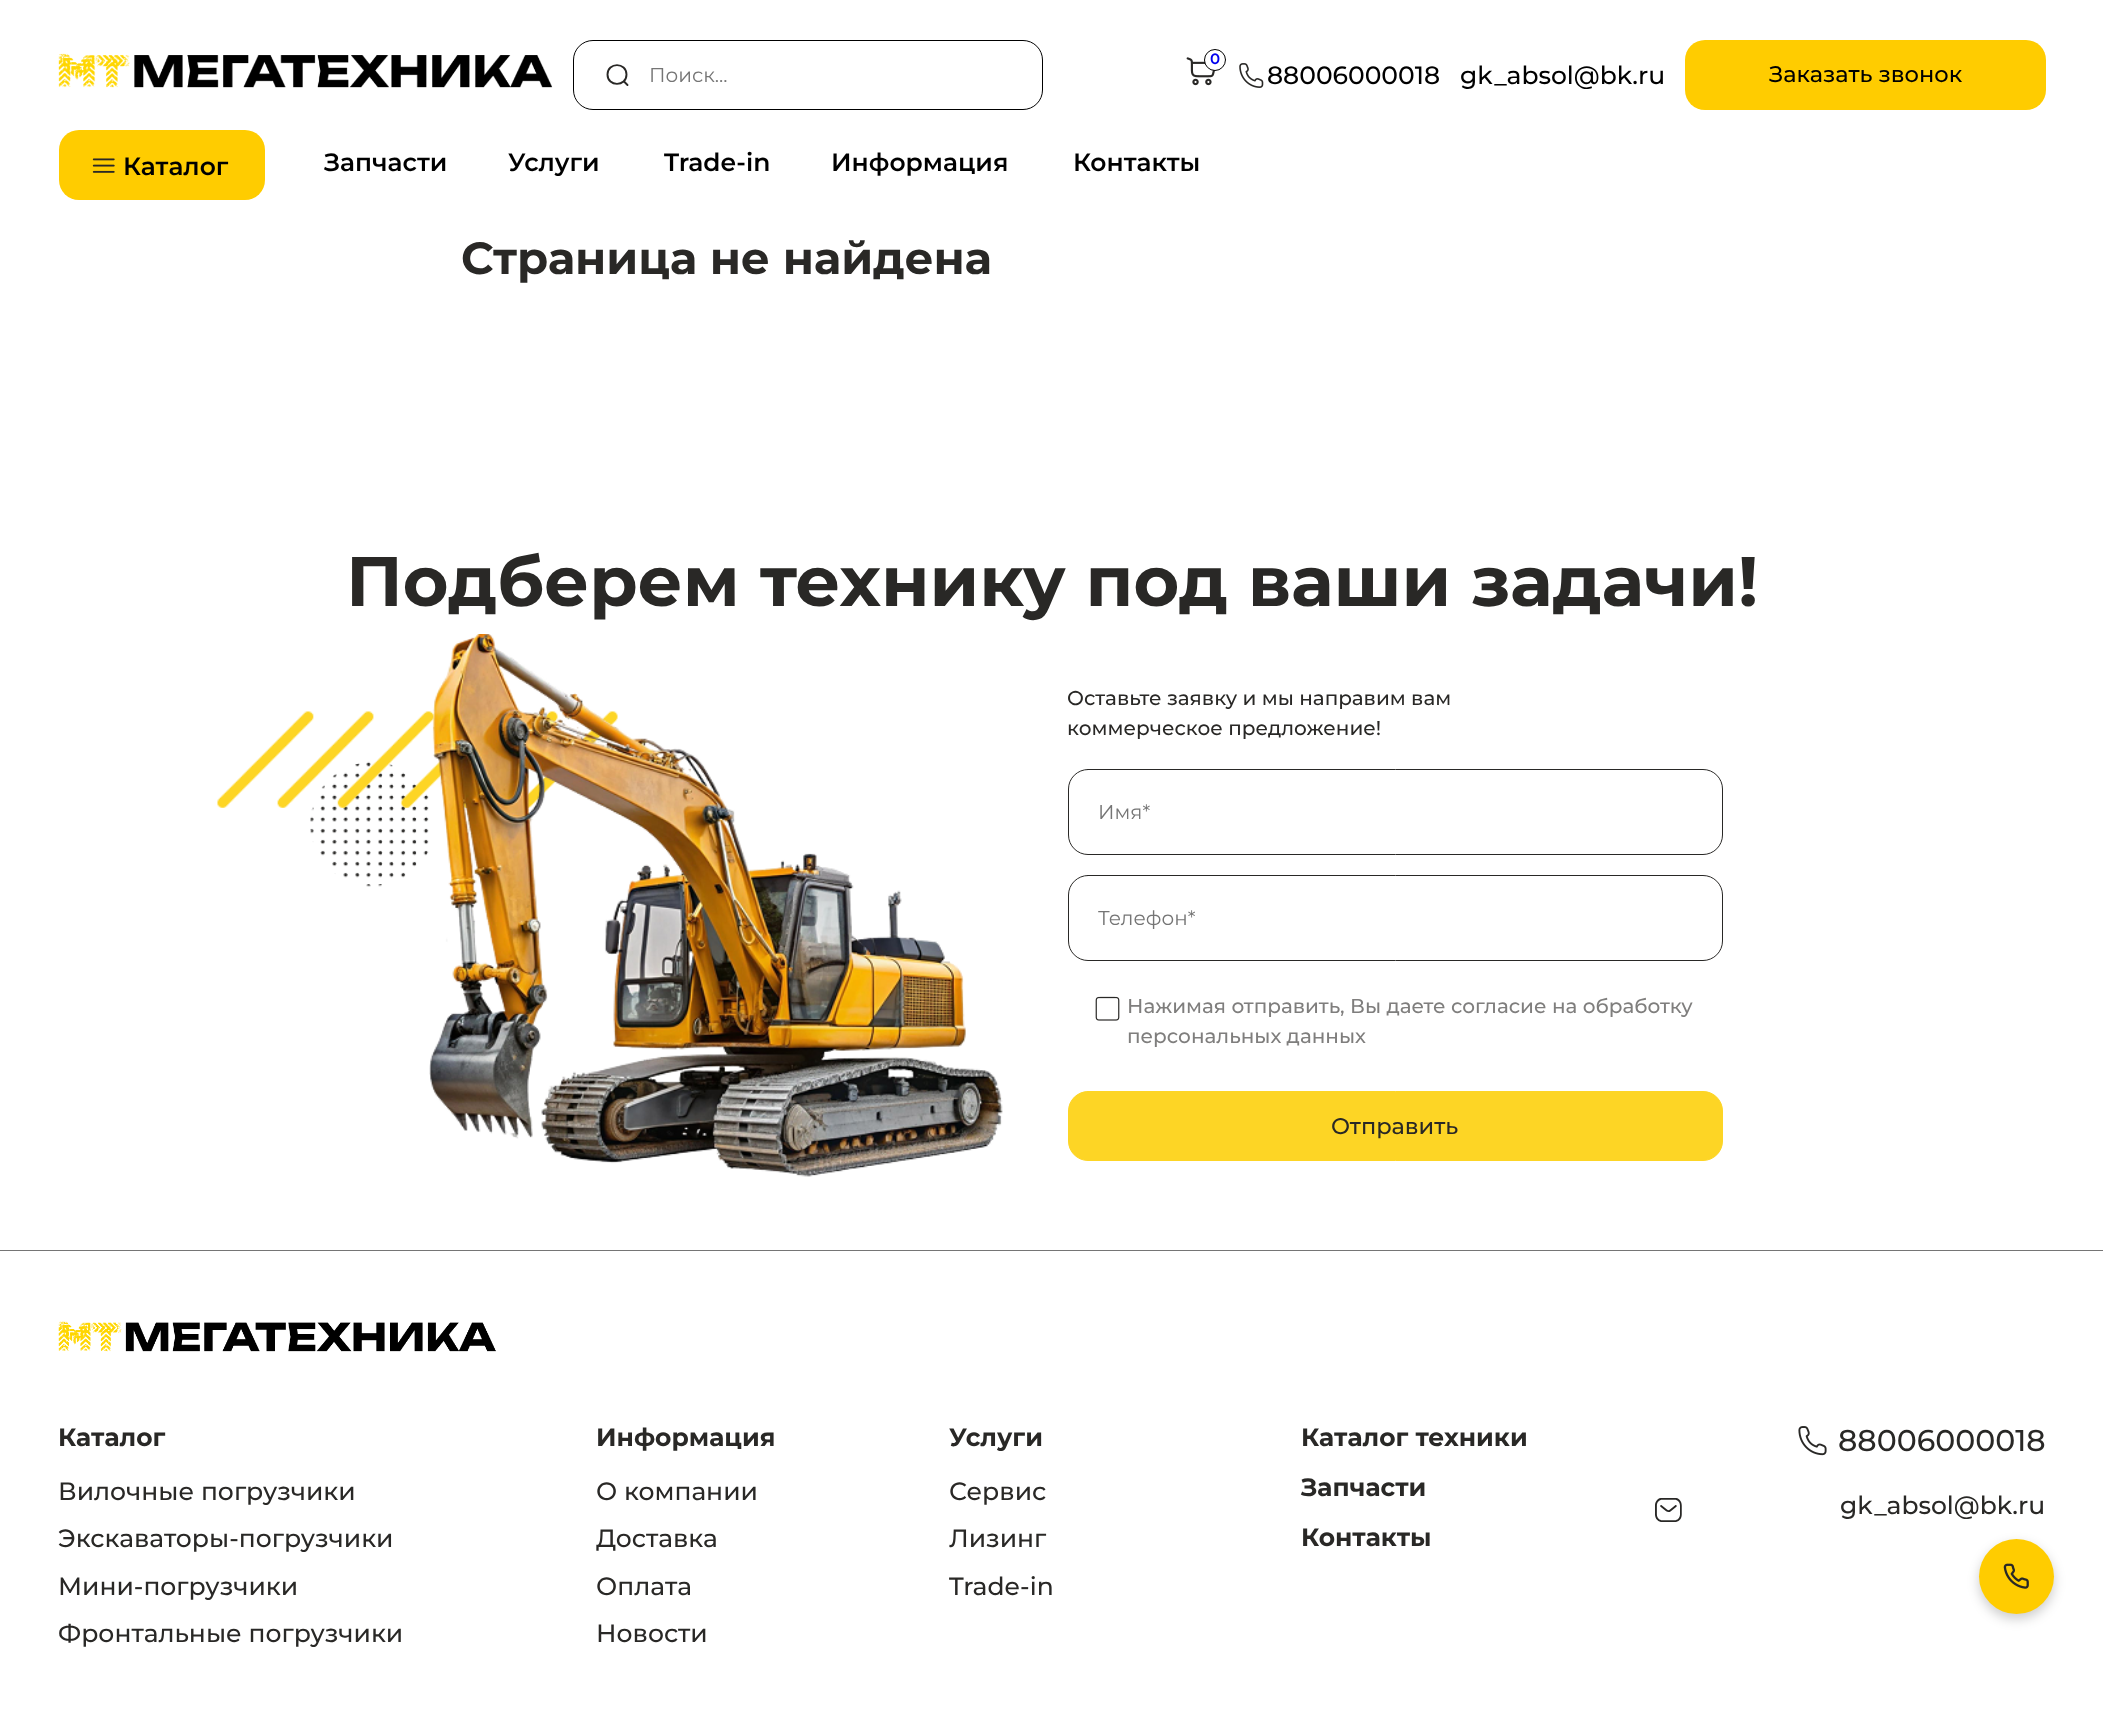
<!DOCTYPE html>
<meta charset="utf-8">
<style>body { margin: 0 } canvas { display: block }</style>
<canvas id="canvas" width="2103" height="1713"></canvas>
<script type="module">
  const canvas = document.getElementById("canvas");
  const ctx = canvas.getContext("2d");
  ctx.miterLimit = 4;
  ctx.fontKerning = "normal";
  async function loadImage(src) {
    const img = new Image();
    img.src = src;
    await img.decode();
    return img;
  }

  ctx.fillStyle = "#ffffff";
  ctx.fillRect(0, 0, 2103, 1713);
  ctx.drawImage(await loadImage("img1.png"), 58, 53, 495, 35);
  ctx.beginPath();
  ctx.roundRect(573.5, 40.5, 469, 69, 19.5);
  ctx.strokeStyle = "#000000";
  ctx.stroke();
  ctx.beginPath();
  ctx.moveTo(624, 81.5);
  ctx.lineTo(627.5, 85);
  ctx.moveTo(626.5, 74.5);
  ctx.bezierCurveTo(626.5, 62, 607.5, 62, 607.5, 74.5);
  ctx.bezierCurveTo(607.5, 87, 626.5, 87, 626.5, 74.5);
  ctx.closePath();
  ctx.strokeStyle = "#292826";
  ctx.lineWidth = 1.9;
  ctx.lineCap = "round";
  ctx.lineJoin = "round";
  ctx.stroke();
  ctx.font = "20px Montserrat";
  ctx.fillStyle = "#757575";
  ctx.fillText("Поиск...", 649, 82);
  ctx.drawImage(await loadImage("img2.png"), 1186, 57, 29, 29);
  ctx.fillStyle = "#ffffff";
  ctx.beginPath();
  ctx.arc(1215, 60, 10.5, 0, Math.PI * 2);
  ctx.fill();
  ctx.strokeStyle = "#000000";
  ctx.lineWidth = 1;
  ctx.stroke();
  ctx.font = "600 15px Montserrat";
  ctx.fillStyle = "#0000ee";
  ctx.fillText("0", 1210, 64);
  ctx.drawImage(await loadImage("img3.png"), 1239, 63, 25, 25);
  ctx.font = "500 25px Montserrat";
  ctx.fillStyle = "#000000";
  ctx.fillText("88006000018", 1267, 84);
  ctx.fillText("gk_absol@bk.ru", 1460, 84);
  ctx.fillStyle = "#ffcc00";
  ctx.beginPath();
  ctx.roundRect(1685, 40, 361, 70, 20);
  ctx.fill();
  ctx.font = "500 22.5px Montserrat";
  ctx.fillStyle = "#000000";
  ctx.fillText("Заказать звонок", 1769, 82);
  ctx.fillStyle = "#ffcc00";
  ctx.beginPath();
  ctx.roundRect(59, 130, 206, 70, 20);
  ctx.fill();
  ctx.drawImage(await loadImage("img4.png"), 92, 158, 23, 15);
  ctx.font = "600 25px Montserrat";
  ctx.fillStyle = "#000000";
  ctx.fillText("Каталог", 123, 175);
  ctx.fillText("Запчасти", 324, 171);
  ctx.fillText("Услуги", 508, 171);
  ctx.fillText("Trade-in", 664, 171);
  ctx.fillText("Информация", 831, 171);
  ctx.fillText("Контакты", 1073, 171);
  ctx.font = "bold 45px Montserrat";
  ctx.fillStyle = "#292826";
  ctx.fillText("Страница не найдена", 461, 274);
  ctx.font = "bold 70px Montserrat";
  ctx.fillText("Подберем технику под ваши задачи!", 346, 606);
  ctx.drawImage(await loadImage("img7.png"), 310, 761, 119, 126);
  ctx.drawImage(await loadImage("img5.png"), 217, 711, 401, 97);
  ctx.drawImage(await loadImage("img6.png"), 429, 634, 574, 543);
  ctx.font = "500 20px Montserrat";
  ctx.fillText("Оставьте заявку и мы направим вам", 1067, 705);
  ctx.fillText("коммерческое предложение!", 1067, 735);
  ctx.beginPath();
  ctx.roundRect(1068.5, 769.5, 654, 85, 19.5);
  ctx.strokeStyle = "#292826";
  ctx.lineJoin = "miter";
  ctx.stroke();
  ctx.font = "20px Montserrat";
  ctx.fillStyle = "#757575";
  ctx.fillText("Имя*", 1098, 819);
  ctx.beginPath();
  ctx.roundRect(1068.5, 875.5, 654, 85, 19.5);
  ctx.stroke();
  ctx.fillText("Телефон*", 1098, 925);
  ctx.drawImage(await loadImage("img8.png"), 1095, 996, 25, 25);
  ctx.font = "500 20px Montserrat";
  ctx.fillStyle = "#7f7e7d";
  ctx.fillText("Нажимая отправить, Вы даете согласие на обработку", 1127, 1013);
  ctx.fillText("персональных данных", 1127, 1043);
  ctx.fillStyle = "#fdd525";
  ctx.beginPath();
  ctx.roundRect(1068.5, 1091.5, 654, 69, 19.5);
  ctx.fill();
  ctx.strokeStyle = "#fdd525";
  ctx.stroke();
  ctx.font = "500 22.5px Montserrat";
  ctx.fillStyle = "#292826";
  ctx.fillText("Отправить", 1331, 1134);
  ctx.fillStyle = "#757575";
  ctx.fillRect(0, 1250, 2103, 1);
  ctx.drawImage(await loadImage("img9.png"), 58, 1321, 438, 31);
  ctx.font = "bold 25px Montserrat";
  ctx.fillStyle = "#292826";
  ctx.fillText("Каталог", 58, 1446);
  ctx.font = "500 25px Montserrat";
  ctx.fillText("Вилочные погрузчики", 58, 1500);
  ctx.fillText("Экскаваторы-погрузчики", 58, 1547);
  ctx.fillText("Мини-погрузчики", 58, 1595);
  ctx.fillText("Фронтальные погрузчики", 58, 1642);
  ctx.font = "bold 25px Montserrat";
  ctx.fillText("Информация", 596, 1446);
  ctx.font = "500 25px Montserrat";
  ctx.fillText("О компании", 596, 1500);
  ctx.fillText("Доставка", 596, 1547);
  ctx.fillText("Оплата", 596, 1595);
  ctx.fillText("Новости", 596, 1642);
  ctx.font = "bold 25px Montserrat";
  ctx.fillText("Услуги", 949, 1446);
  ctx.font = "500 25px Montserrat";
  ctx.fillText("Сервис", 949, 1500);
  ctx.fillText("Лизинг", 949, 1547);
  ctx.fillText("Trade-in", 949, 1595);
  ctx.font = "bold 25px Montserrat";
  ctx.fillText("Каталог техники", 1301, 1446);
  ctx.fillText("Запчасти", 1301, 1496);
  ctx.fillText("Контакты", 1301, 1546);
  ctx.drawImage(await loadImage("img10.png"), 1798, 1426, 29, 30);
  ctx.font = "500 30px Montserrat";
  ctx.fillText("88006000018", 1838, 1451);
  ctx.drawImage(await loadImage("img11.png"), 1655, 1498, 27, 24);
  ctx.font = "500 25px Montserrat";
  ctx.fillText("gk_absol@bk.ru", 1840, 1514);
  ctx.fillStyle = "rgba(0, 0, 0, 0.2)";
  ctx.filter = "blur(6px)";
  ctx.beginPath();
  ctx.roundRect(1979, 1544, 75, 75, 37.5);
  ctx.fill();
  ctx.filter = "none";
  ctx.fillStyle = "#ffcc00";
  ctx.beginPath();
  ctx.arc(2016.5, 1576.5, 37.5, 0, Math.PI * 2);
  ctx.fill();
  ctx.drawImage(await loadImage("img12.png"), 2003, 1563, 26, 26);
</script>
